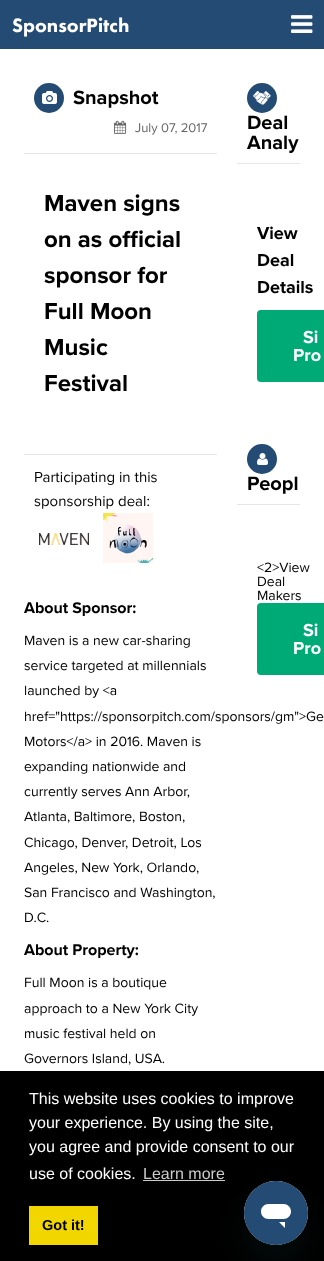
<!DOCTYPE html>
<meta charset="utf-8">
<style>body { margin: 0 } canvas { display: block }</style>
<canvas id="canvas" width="324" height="1261"></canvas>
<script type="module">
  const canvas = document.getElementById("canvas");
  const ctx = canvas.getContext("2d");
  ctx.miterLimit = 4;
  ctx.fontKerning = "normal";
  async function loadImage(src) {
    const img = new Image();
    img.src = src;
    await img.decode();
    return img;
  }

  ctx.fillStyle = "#ffffff";
  ctx.fillRect(0, 0, 324, 1261);
  ctx.fillStyle = "#244b73";
  ctx.fillRect(0, 0, 324, 49);
  ctx.font = "900 20px Futura PT";
  ctx.fillStyle = "#ffffff";
  ctx.fillText("SponsorPitch", 12, 32);
  ctx.drawImage(await loadImage("img1.png"), 291, 15, 22, 18);
  ctx.fillStyle = "#e6e6e6";
  ctx.fillRect(24, 153, 193, 1);
  ctx.fillStyle = "#244b73";
  ctx.beginPath();
  ctx.arc(49, 98, 15, 0, Math.PI * 2);
  ctx.fill();
  ctx.drawImage(await loadImage("img2.png"), 42, 91, 15, 13);
  ctx.font = "bold 20px Proxima Nova";
  ctx.fillStyle = "#000000";
  ctx.fillText("Snapshot", 73, 104);
  ctx.drawImage(await loadImage("img3.png"), 114, 120, 13, 14);
  ctx.font = "13px Proxima Nova";
  ctx.fillStyle = "#666666";
  ctx.fillText("July 07, 2017", 135, 132);
  ctx.font = "bold 24px Proxima Nova";
  ctx.fillStyle = "#000000";
  ctx.fillText("Maven signs", 44, 211);
  ctx.fillText("on as official", 44, 247);
  ctx.fillText("sponsor for", 44, 283);
  ctx.fillText("Full Moon", 44, 319);
  ctx.fillText("Music", 44, 355);
  ctx.fillText("Festival", 44, 391);
  ctx.fillStyle = "#e6e6e6";
  ctx.fillRect(24, 454, 193, 1);
  ctx.font = "15px Proxima Nova";
  ctx.fillStyle = "#000000";
  ctx.fillText("Participating in this", 34, 482);
  ctx.fillText("sponsorship deal:", 34, 506);
  ctx.drawImage(await loadImage("img4.png"), 39, 533, 50, 12);
  ctx.drawImage(await loadImage("img5.png"), 103, 513, 50, 50);
  ctx.font = "bold 16px Proxima Nova";
  ctx.fillText("About Sponsor:", 24, 613);
  ctx.font = "14px Proxima Nova";
  ctx.fillText("Maven is a new car-sharing", 24, 645);
  ctx.fillText("service targeted at millennials", 24, 670);
  ctx.fillText("launched by <a", 24, 695);
  ctx.fillText("href=\"https://sponsorpitch.com/sponsors/gm\">Ge", 24, 721);
  ctx.fillText("Motors<\/a> in 2016. Maven is", 24, 746);
  ctx.fillText("expanding nationwide and", 24, 771);
  ctx.fillText("currently serves Ann Arbor,", 24, 796);
  ctx.fillText("Atlanta, Baltimore, Boston,", 24, 821);
  ctx.fillText("Chicago, Denver, Detroit, Los", 24, 847);
  ctx.fillText("Angeles, New York, Orlando,", 24, 872);
  ctx.fillText("San Francisco and Washington,", 24, 897);
  ctx.fillText("D.C.", 24, 922);
  ctx.font = "bold 16px Proxima Nova";
  ctx.fillText("About Property:", 24, 955);
  ctx.font = "14px Proxima Nova";
  ctx.fillText("Full Moon is a boutique", 24, 987);
  ctx.fillText("approach to a New York City", 24, 1013);
  ctx.fillText("music festival held on", 24, 1038);
  ctx.fillText("Governors Island, USA.", 24, 1063);
  ctx.fillStyle = "#e6e6e6";
  ctx.fillRect(237, 163, 63, 1);
  ctx.fillStyle = "#244b73";
  ctx.beginPath();
  ctx.arc(262, 98, 15, 0, Math.PI * 2);
  ctx.fill();
  ctx.drawImage(await loadImage("img6.png"), 253, 91, 18, 14);
  ctx.font = "bold 20px Proxima Nova";
  ctx.fillStyle = "#000000";
  ctx.fillText("Deal", 247, 129);
  ctx.fillText("Analy", 247, 149);
  ctx.font = "bold 18px Proxima Nova";
  ctx.fillText("View", 257, 239);
  ctx.fillText("Deal", 257, 266);
  ctx.fillText("Details", 257, 293);
  ctx.fillStyle = "#00aa77";
  ctx.beginPath();
  ctx.roundRect(257, 310, 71, 72, 4);
  ctx.fill();
  ctx.fillStyle = "#ffffff";
  ctx.fillText("Si", 303, 343);
  ctx.fillText("Pro", 293, 361);
  ctx.fillStyle = "#e6e6e6";
  ctx.fillRect(237, 504, 63, 1);
  ctx.fillStyle = "#244b73";
  ctx.beginPath();
  ctx.arc(262, 459, 15, 0, Math.PI * 2);
  ctx.fill();
  ctx.drawImage(await loadImage("img7.png"), 257, 453, 11, 12);
  ctx.font = "bold 20px Proxima Nova";
  ctx.fillStyle = "#000000";
  ctx.fillText("Peopl", 247, 490);
  ctx.font = "14px Proxima Nova";
  ctx.fillText("<2>View", 257, 572);
  ctx.fillText("Deal", 257, 586);
  ctx.fillText("Makers", 257, 600);
  ctx.fillStyle = "#00aa77";
  ctx.beginPath();
  ctx.roundRect(257, 603, 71, 72, 4);
  ctx.fill();
  ctx.font = "bold 18px Proxima Nova";
  ctx.fillStyle = "#ffffff";
  ctx.fillText("Si", 303, 636);
  ctx.fillText("Pro", 293, 654);
  ctx.fillStyle = "#000000";
  ctx.fillRect(0, 1071, 324, 190);
  ctx.font = "16px Liberation Sans";
  ctx.fillStyle = "#ffffff";
  ctx.fillText("This website uses cookies to improve", 29, 1104);
  ctx.fillText("your experience. By using the site,", 29, 1128);
  ctx.fillText("you agree and provide consent to our", 29, 1152);
  ctx.fillText("use of cookies.", 29, 1179);
  ctx.fillStyle = "#cccccc";
  ctx.fillText("Learn more", 143, 1179);
  ctx.fillRect(143, 1180, 82, 1);
  ctx.fillStyle = "#f1d600";
  ctx.fillRect(29, 1206, 69, 39);
  ctx.font = "bold 14.5px Liberation Sans";
  ctx.fillStyle = "#000000";
  ctx.fillText("Got it!", 42, 1230);
  ctx.fillStyle = "rgba(23, 73, 77, 0.15)";
  ctx.filter = "blur(15px)";
  ctx.beginPath();
  ctx.roundRect(244, 1201, 64, 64, 32);
  ctx.fill();
  ctx.filter = "none";
  ctx.drawImage(await loadImage("img8.png"), 244, 1181, 64, 64);
</script>
